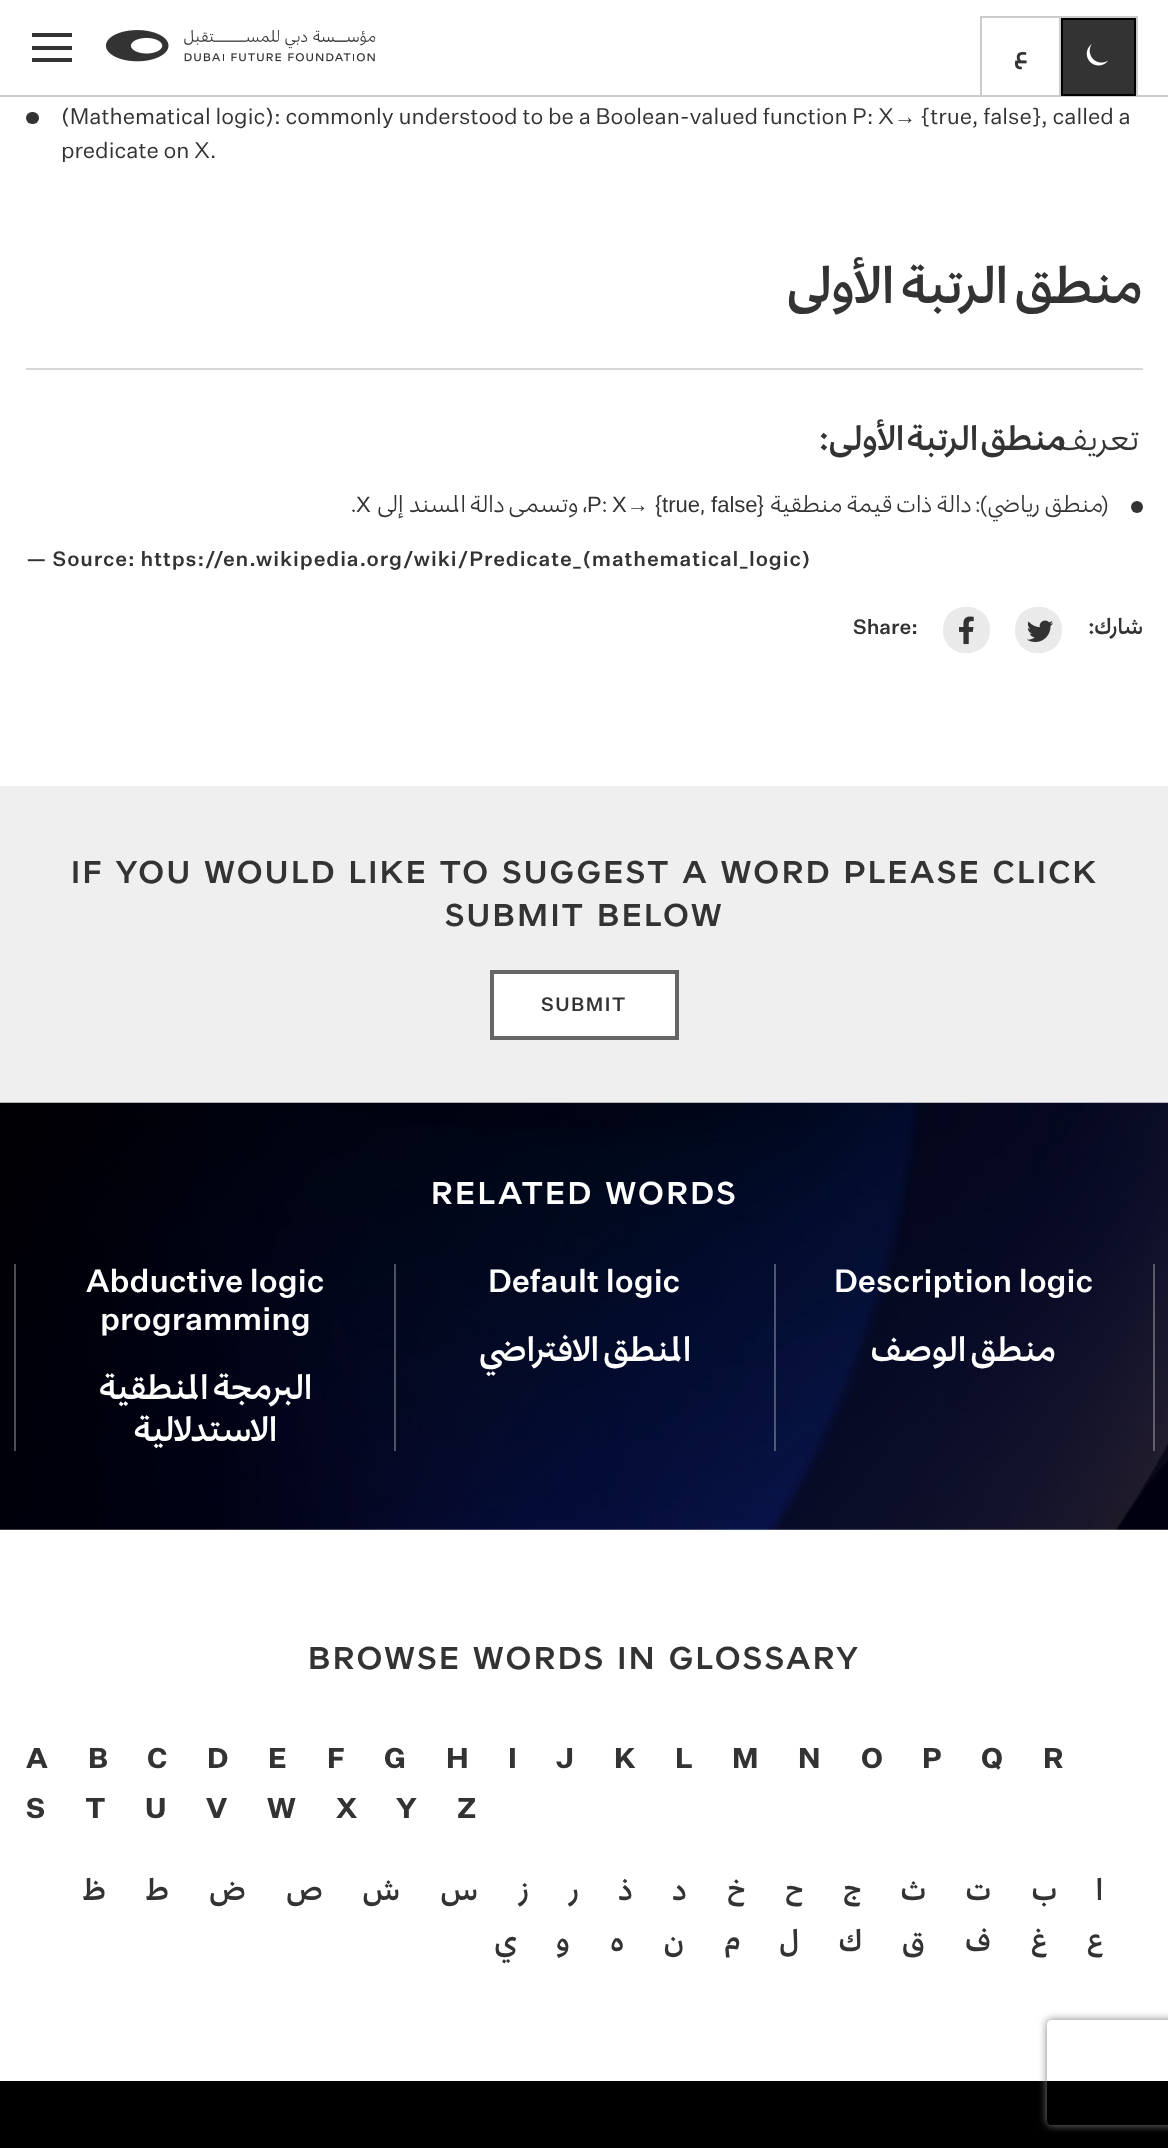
<!DOCTYPE html>
<meta charset="utf-8">
<style>body { margin: 0 } canvas { display: block }</style>
<canvas id="canvas" width="1168" height="2148"></canvas>
<script type="module">
  const canvas = document.getElementById("canvas");
  const ctx = canvas.getContext("2d");
  ctx.miterLimit = 4;
  ctx.fontKerning = "normal";
  async function loadImage(src) {
    const img = new Image();
    img.src = src;
    await img.decode();
    return img;
  }

  ctx.fillStyle = "#ffffff";
  ctx.fillRect(0, 0, 1168, 2148);
  ctx.fillStyle = "#cccccc";
  ctx.fillRect(0, 95, 1168, 2);
  ctx.fillStyle = "#333333";
  ctx.fillRect(32, 33, 40, 4);
  ctx.fillRect(32, 46, 40, 4);
  ctx.fillRect(32, 58, 40, 4);
  ctx.drawImage(await loadImage("img1.png"), 105, 30, 271, 32);
  ctx.fillStyle = "#cccccc";
  ctx.fillRect(980, 16, 158, 2);
  ctx.fillRect(980, 16, 2, 80);
  ctx.drawImage(await loadImage("img2.png"), 1015, 52, 12, 18);
  ctx.fillRect(1136, 16, 2, 80);
  ctx.fillRect(1059, 16, 2, 80);
  ctx.fillStyle = "#333333";
  ctx.beginPath();
  ctx.rect(1062, 19, 73, 76);
  ctx.fill();
  ctx.strokeStyle = "#000000";
  ctx.lineWidth = 2;
  ctx.stroke();
  ctx.drawImage(await loadImage("img3.png"), 1086, 44, 22, 22);
  ctx.beginPath();
  ctx.roundRect(26, 112, 13, 12, 6);
  ctx.fill();
  ctx.font = "22.05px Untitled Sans";
  ctx.fillText("(Mathematical logic): commonly understood to be a Boolean-valued function P: X", 61, 124);
  ctx.font = "22.05px Liberation Sans";
  ctx.fillText("→", 894, 124);
  ctx.font = "22.05px Untitled Sans";
  ctx.fillText("{true, false}, called a", 921, 124);
  ctx.fillText("predicate on X.", 61, 158);
  ctx.direction = "rtl";
  ctx.font = "600 47.25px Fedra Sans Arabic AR";
  ctx.fillText("منطق الرتبة الأولى", 1143, 303);
  ctx.fillStyle = "#d6d6d6";
  ctx.fillRect(26, 368, 1117, 2);
  ctx.letterSpacing = "0.88px";
  ctx.font = "31.5px Fedra Sans Arabic AR";
  ctx.fillStyle = "#333333";
  ctx.fillText("تعريف", 1139, 450);
  ctx.wordSpacing = "-2px";
  ctx.font = "600 31.5px Fedra Sans Arabic AR";
  ctx.fillText("منطق الرتبة الأولى:", 1066, 450);
  ctx.letterSpacing = "0px";
  ctx.wordSpacing = "0px";
  ctx.direction = "ltr";
  ctx.font = "22.05px Fedra Sans Arabic AR";
  ctx.fillText(".", 351, 512);
  ctx.font = "22.05px Liberation Sans";
  ctx.fillText("X", 356, 512);
  ctx.direction = "rtl";
  ctx.font = "22.05px Fedra Sans Arabic AR";
  ctx.fillText("، وتسمى دالة المسند إلى", 587, 512);
  ctx.direction = "ltr";
  ctx.font = "22.05px Liberation Sans";
  ctx.fillText("P", 587, 512);
  ctx.font = "22.05px Fedra Sans Arabic AR";
  ctx.fillText(":", 602, 512);
  ctx.font = "22.05px Liberation Sans";
  ctx.fillText("X→", 612, 512);
  ctx.font = "22.05px Fedra Sans Arabic AR";
  ctx.fillText("{", 655, 512);
  ctx.font = "22.05px Liberation Sans";
  ctx.fillText("true", 662, 512);
  ctx.font = "22.05px Fedra Sans Arabic AR";
  ctx.fillText(",", 700, 512);
  ctx.font = "22.05px Liberation Sans";
  ctx.fillText("false", 711, 512);
  ctx.font = "22.05px Fedra Sans Arabic AR";
  ctx.fillText("}", 757, 512);
  ctx.direction = "rtl";
  ctx.fillText("(منطق رياضي): دالة ذات قيمة منطقية", 1108, 512);
  ctx.beginPath();
  ctx.arc(1137, 507, 6, 0, Math.PI * 2);
  ctx.fill();
  ctx.letterSpacing = "0.88px";
  ctx.direction = "ltr";
  ctx.font = "500 20.45px Untitled Sans";
  ctx.fillText("— Source: https://en.wikipedia.org/wiki/Predicate_(mathematical_logic)", 26, 566);
  ctx.letterSpacing = "0px";
  ctx.fillText("Share:", 853, 634);
  ctx.drawImage(await loadImage("img4.png"), 959, 616, 15, 29);
  ctx.fillStyle = "rgba(51, 51, 51, 0.1)";
  ctx.beginPath();
  ctx.moveTo(990, 630);
  ctx.bezierCurveTo(990, 661, 943, 661, 943, 630);
  ctx.bezierCurveTo(943, 599, 990, 599, 990, 630);
  ctx.closePath();
  ctx.fill();
  ctx.drawImage(await loadImage("img5.png"), 1027, 620, 26, 22);
  ctx.beginPath();
  ctx.moveTo(1062, 630);
  ctx.bezierCurveTo(1062, 661, 1015, 661, 1015, 630);
  ctx.bezierCurveTo(1015, 599, 1062, 599, 1062, 630);
  ctx.closePath();
  ctx.fill();
  ctx.direction = "rtl";
  ctx.font = "600 20.45px Fedra Sans Arabic AR";
  ctx.fillStyle = "#333333";
  ctx.fillText("شارك:", 1143, 634);
  ctx.fillStyle = "#efefef";
  ctx.fillRect(0, 786, 1168, 317);
  ctx.letterSpacing = "2.8px";
  ctx.direction = "ltr";
  ctx.font = "bold 31.5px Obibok";
  ctx.fillStyle = "#333333";
  ctx.fillText("IF YOU WOULD LIKE TO SUGGEST A WORD PLEASE CLICK", 71, 883);
  ctx.fillText("SUBMIT BELOW", 445, 926);
  ctx.fillStyle = "#ffffff";
  ctx.beginPath();
  ctx.rect(492, 972, 185, 66);
  ctx.fill();
  ctx.strokeStyle = "#666666";
  ctx.lineWidth = 4;
  ctx.stroke();
  ctx.letterSpacing = "1.5px";
  ctx.font = "500 19px Untitled Sans";
  ctx.fillStyle = "#333333";
  ctx.fillText("SUBMIT", 541, 1011);
  ctx.drawImage(await loadImage("img6.png"), 0, 1102, 1168, 428);
  ctx.letterSpacing = "2.8px";
  ctx.font = "bold 31.5px Obibok";
  ctx.fillStyle = "#ffffff";
  ctx.fillText("RELATED WORDS", 431, 1204);
  ctx.fillStyle = "rgba(255, 255, 255, 0.3)";
  ctx.fillRect(14, 1264, 2, 187);
  ctx.letterSpacing = "0px";
  ctx.font = "500 31.5px Untitled Sans";
  ctx.fillStyle = "#ffffff";
  ctx.fillText("Abductive logic", 86, 1292);
  ctx.fillText("programming", 100, 1330);
  ctx.direction = "rtl";
  ctx.font = "600 31.5px Fedra Sans Arabic AR";
  ctx.fillText("البرمجة المنطقية", 312, 1399);
  ctx.fillText("الاستدلالية", 277, 1441);
  ctx.fillStyle = "rgba(255, 255, 255, 0.3)";
  ctx.fillRect(774, 1264, 2, 187);
  ctx.fillRect(394, 1264, 2, 187);
  ctx.direction = "ltr";
  ctx.font = "500 31.5px Untitled Sans";
  ctx.fillStyle = "#ffffff";
  ctx.fillText("Default logic", 488, 1292);
  ctx.direction = "rtl";
  ctx.font = "600 31.5px Fedra Sans Arabic AR";
  ctx.fillText("المنطق الافتراضي", 691, 1361);
  ctx.fillStyle = "rgba(255, 255, 255, 0.3)";
  ctx.fillRect(1153, 1264, 2, 187);
  ctx.direction = "ltr";
  ctx.font = "500 31.5px Untitled Sans";
  ctx.fillStyle = "#ffffff";
  ctx.fillText("Description logic", 834, 1292);
  ctx.direction = "rtl";
  ctx.font = "600 31.5px Fedra Sans Arabic AR";
  ctx.fillText("منطق الوصف", 1056, 1361);
  ctx.letterSpacing = "2.8px";
  ctx.direction = "ltr";
  ctx.font = "bold 31.5px Obibok";
  ctx.fillStyle = "#333333";
  ctx.fillText("BROWSE WORDS IN GLOSSARY", 308, 1669);
  ctx.letterSpacing = "0px";
  ctx.font = "bold 28px Untitled Sans";
  ctx.fillText("A", 26, 1768);
  ctx.fillText("B", 88, 1768);
  ctx.fillText("C", 147, 1768);
  ctx.fillText("D", 207, 1768);
  ctx.fillText("E", 268, 1768);
  ctx.fillText("F", 327, 1768);
  ctx.fillText("G", 384, 1768);
  ctx.fillText("H", 446, 1768);
  ctx.fillText("I", 508, 1768);
  ctx.fillText("J", 556, 1768);
  ctx.fillText("K", 614, 1768);
  ctx.fillText("L", 675, 1768);
  ctx.fillText("M", 732, 1768);
  ctx.fillText("N", 798, 1768);
  ctx.fillText("O", 861, 1768);
  ctx.fillText("P", 922, 1768);
  ctx.fillText("Q", 981, 1768);
  ctx.fillText("R", 1043, 1768);
  ctx.fillText("S", 26, 1818);
  ctx.fillText("T", 85, 1818);
  ctx.fillText("U", 145, 1818);
  ctx.fillText("V", 206, 1818);
  ctx.fillText("W", 267, 1818);
  ctx.fillText("X", 336, 1818);
  ctx.fillText("Y", 396, 1818);
  ctx.fillText("Z", 457, 1818);
  ctx.direction = "rtl";
  ctx.font = "600 28px Fedra Sans Arabic AR";
  ctx.fillText("ظ", 106, 1900);
  ctx.fillText("ط", 169, 1900);
  ctx.fillText("ض", 246, 1900);
  ctx.fillText("ص", 323, 1900);
  ctx.fillText("ش", 400, 1900);
  ctx.fillText("س", 478, 1900);
  ctx.fillText("ز", 529, 1900);
  ctx.fillText("ر", 579, 1900);
  ctx.fillText("ذ", 633, 1900);
  ctx.fillText("د", 687, 1900);
  ctx.fillText("خ", 745, 1900);
  ctx.fillText("ح", 803, 1900);
  ctx.fillText("ج", 861, 1900);
  ctx.fillText("ث", 926, 1900);
  ctx.fillText("ت", 991, 1900);
  ctx.fillText("ب", 1057, 1900);
  ctx.fillText("ا", 1103, 1900);
  ctx.fillText("ي", 517, 1951);
  ctx.fillText("و", 570, 1951);
  ctx.fillText("ه", 624, 1951);
  ctx.fillText("ن", 684, 1951);
  ctx.fillText("م", 740, 1951);
  ctx.fillText("ل", 799, 1951);
  ctx.fillText("ك", 862, 1951);
  ctx.fillText("ق", 925, 1951);
  ctx.fillText("ف", 991, 1951);
  ctx.fillText("غ", 1047, 1951);
  ctx.fillText("ع", 1103, 1951);
  ctx.fillStyle = "#000000";
  ctx.fillRect(0, 2081, 1168, 67);
  ctx.save();
  ctx.beginPath();
  ctx.moveTo(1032, 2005);
  ctx.lineTo(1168, 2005);
  ctx.lineTo(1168, 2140);
  ctx.lineTo(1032, 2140);
  ctx.closePath();
  ctx.moveTo(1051, 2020);
  ctx.lineTo(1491, 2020);
  ctx.bezierCurveTo(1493, 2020, 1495, 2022, 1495, 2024);
  ctx.lineTo(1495, 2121);
  ctx.bezierCurveTo(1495, 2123, 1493, 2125, 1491, 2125);
  ctx.lineTo(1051, 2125);
  ctx.bezierCurveTo(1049, 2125, 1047, 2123, 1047, 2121);
  ctx.lineTo(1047, 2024);
  ctx.bezierCurveTo(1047, 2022, 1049, 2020, 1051, 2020);
  ctx.closePath();
  ctx.clip("evenodd");
  ctx.fillStyle = "#808080";
  ctx.filter = "blur(4.5px)";
  ctx.beginPath();
  ctx.roundRect(1047, 2020, 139, 105, 4);
  ctx.fill();
  ctx.filter = "none";
  ctx.restore();
</script>
